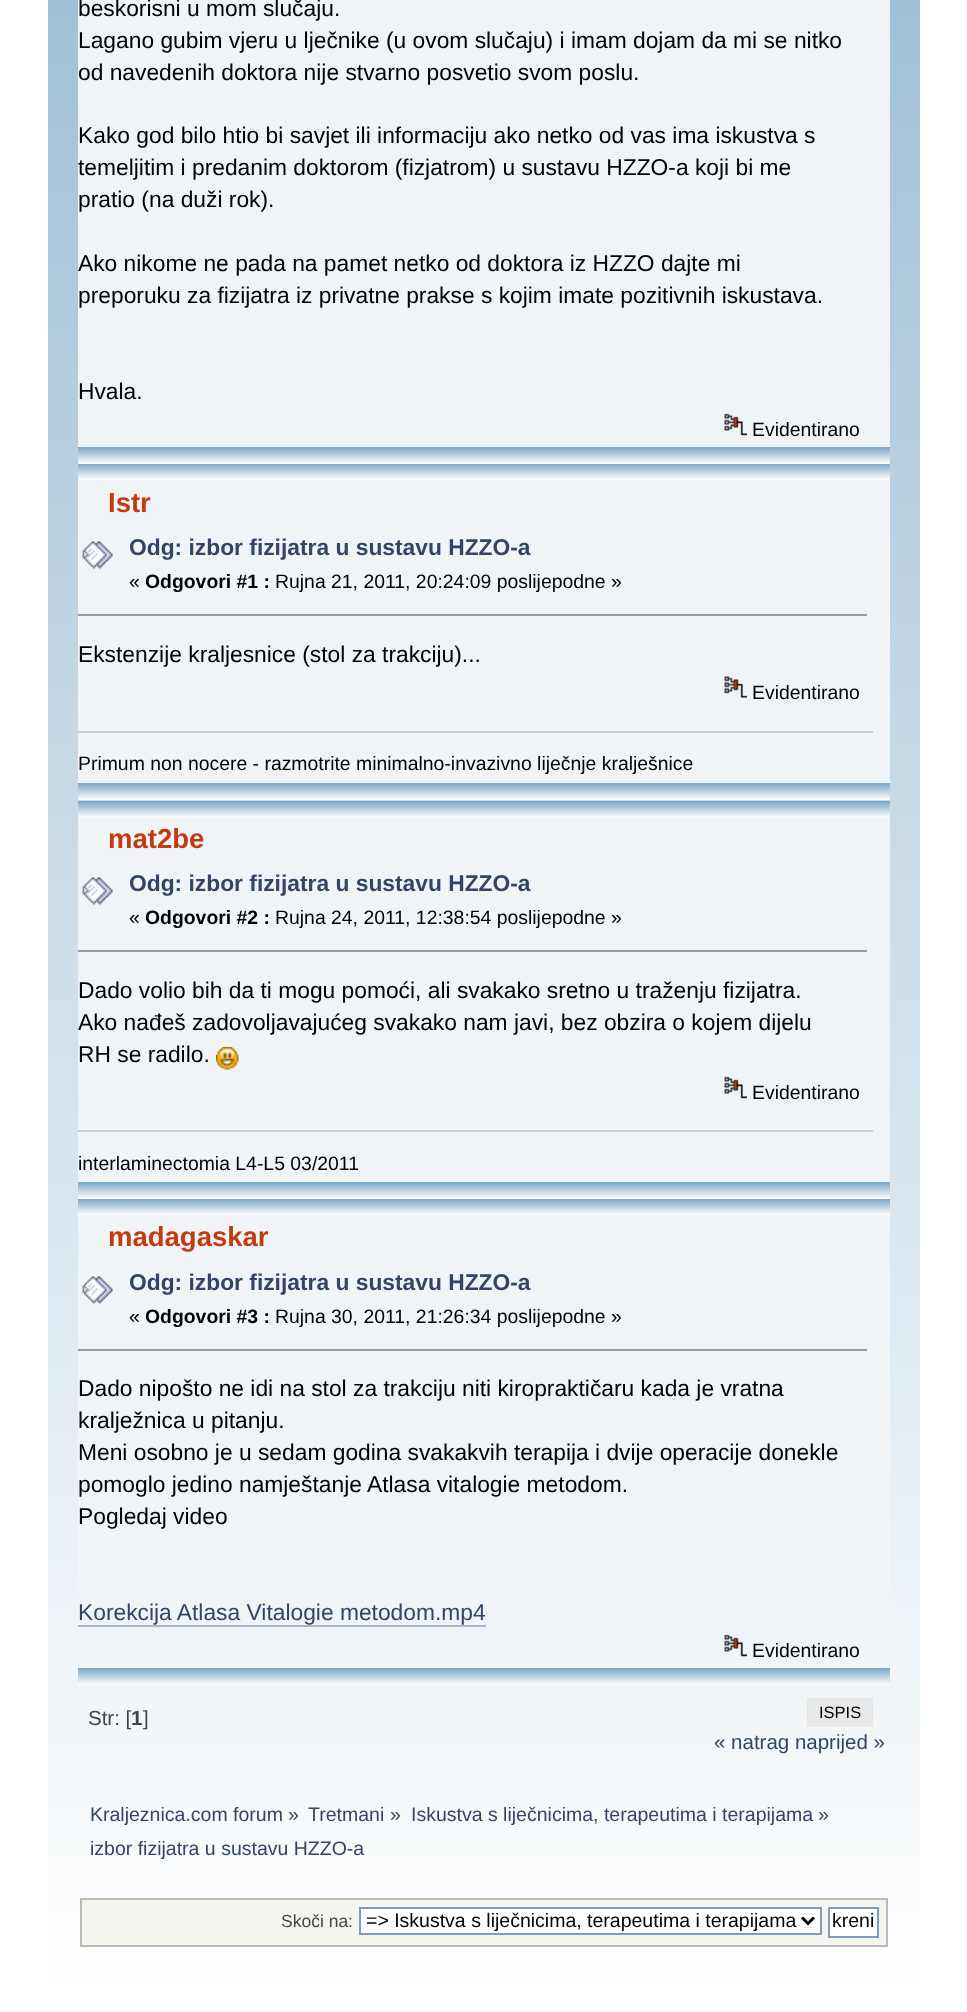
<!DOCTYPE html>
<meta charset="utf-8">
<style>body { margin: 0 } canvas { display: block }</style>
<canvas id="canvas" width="967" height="2012"></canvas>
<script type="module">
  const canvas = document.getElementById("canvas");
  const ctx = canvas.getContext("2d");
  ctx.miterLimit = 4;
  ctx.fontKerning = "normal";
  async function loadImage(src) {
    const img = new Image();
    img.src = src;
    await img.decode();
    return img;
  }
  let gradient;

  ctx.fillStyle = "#ffffff";
  ctx.fillRect(0, 0, 967, 2012);
  gradient = ctx.createLinearGradient(484, -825, 484, 2001);
  gradient.addColorStop(0, "#7ba7c7");
  gradient.addColorStop(1, "#ffffff");
  ctx.fillStyle = gradient;
  ctx.beginPath();
  ctx.roundRect(48, -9, 872, 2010, 9);
  ctx.fill();
  ctx.fillStyle = "#f0f4f7";
  ctx.fillRect(78, 0, 812, 447);
  ctx.font = "22.8px Liberation Sans";
  ctx.fillStyle = "#000000";
  ctx.fillText("beskorisni u mom slučaju.", 78, 16);
  ctx.fillText("Lagano gubim vjeru u lječnike (u ovom slučaju) i imam dojam da mi se nitko", 78, 48);
  ctx.fillText("od navedenih doktora nije stvarno posvetio svom poslu.", 78, 80);
  ctx.fillText("Kako god bilo htio bi savjet ili informaciju ako netko od vas ima iskustva s", 78, 143);
  ctx.fillText("temeljitim i predanim doktorom (fizjatrom) u sustavu HZZO-a koji bi me", 78, 175);
  ctx.fillText("pratio (na duži rok).", 78, 207);
  ctx.fillText("Ako nikome ne pada na pamet netko od doktora iz HZZO dajte mi", 78, 271);
  ctx.fillText("preporuku za fizijatra iz privatne prakse s kojim imate pozitivnih iskustava.", 78, 303);
  ctx.fillText("Hvala.", 78, 399);
  ctx.drawImage(await loadImage("img1.png"), 724, 413, 23, 23);
  ctx.font = "19.4px Liberation Sans";
  ctx.fillText("Evidentirano", 752, 436);
  gradient = ctx.createLinearGradient(484, 447, 484, 464);
  gradient.addColorStop(0, "#7ba7c7");
  gradient.addColorStop(1, "#ffffff");
  ctx.fillStyle = gradient;
  ctx.fillRect(78, 447, 812, 17);
  ctx.fillStyle = "#f0f4f7";
  ctx.fillRect(78, 480, 812, 303);
  gradient = ctx.createLinearGradient(484, 463, 484, 480);
  gradient.addColorStop(0, "#7ba7c7");
  gradient.addColorStop(1, "#ffffff");
  ctx.fillStyle = gradient;
  ctx.fillRect(78, 464, 812, 16);
  ctx.font = "bold 27.5px Liberation Sans";
  ctx.fillStyle = "#c33a0e";
  ctx.fillText("Istr", 108, 512);
  ctx.drawImage(await loadImage("img2.png"), 82, 541, 31, 28);
  ctx.font = "bold 22.8px Liberation Sans";
  ctx.fillStyle = "#334466";
  ctx.fillText("Odg: izbor fizijatra u sustavu HZZO-a", 129, 555);
  ctx.font = "19.4px Liberation Sans";
  ctx.fillStyle = "#000000";
  ctx.fillText("«", 129, 588);
  ctx.font = "bold 19.4px Liberation Sans";
  ctx.fillText("Odgovori #1 :", 145, 588);
  ctx.font = "19.4px Liberation Sans";
  ctx.fillText("Rujna 21, 2011, 20:24:09 poslijepodne »", 275, 588);
  ctx.fillStyle = "#9999aa";
  ctx.fillRect(78, 614, 789, 2);
  ctx.font = "22.8px Liberation Sans";
  ctx.fillStyle = "#000000";
  ctx.fillText("Ekstenzije kraljesnice (stol za trakciju)...", 78, 662);
  ctx.drawImage(await loadImage("img3.png"), 724, 676, 23, 22);
  ctx.font = "19.4px Liberation Sans";
  ctx.fillText("Evidentirano", 752, 699);
  ctx.fillStyle = "#cccccc";
  ctx.fillRect(78, 731, 795, 2);
  ctx.fillStyle = "#000000";
  ctx.fillText("Primum non nocere - razmotrite minimalno-invazivno liječnje kralješnice", 78, 770);
  gradient = ctx.createLinearGradient(484, 783, 484, 800);
  gradient.addColorStop(0, "#7ba7c7");
  gradient.addColorStop(1, "#ffffff");
  ctx.fillStyle = gradient;
  ctx.fillRect(78, 783, 812, 17);
  ctx.fillStyle = "#f0f4f7";
  ctx.fillRect(78, 818, 812, 364);
  gradient = ctx.createLinearGradient(484, 801, 484, 818);
  gradient.addColorStop(0, "#7ba7c7");
  gradient.addColorStop(1, "#ffffff");
  ctx.fillStyle = gradient;
  ctx.fillRect(78, 801, 812, 17);
  ctx.font = "bold 27.5px Liberation Sans";
  ctx.fillStyle = "#c33a0e";
  ctx.fillText("mat2be", 108, 848);
  ctx.drawImage(await loadImage("img2.png"), 82, 877, 31, 28);
  ctx.font = "bold 22.8px Liberation Sans";
  ctx.fillStyle = "#334466";
  ctx.fillText("Odg: izbor fizijatra u sustavu HZZO-a", 129, 891);
  ctx.font = "19.4px Liberation Sans";
  ctx.fillStyle = "#000000";
  ctx.fillText("«", 129, 924);
  ctx.font = "bold 19.4px Liberation Sans";
  ctx.fillText("Odgovori #2 :", 145, 924);
  ctx.font = "19.4px Liberation Sans";
  ctx.fillText("Rujna 24, 2011, 12:38:54 poslijepodne »", 275, 924);
  ctx.fillStyle = "#9999aa";
  ctx.fillRect(78, 950, 789, 2);
  ctx.font = "22.8px Liberation Sans";
  ctx.fillStyle = "#000000";
  ctx.fillText("Dado volio bih da ti mogu pomoći, ali svakako sretno u traženju fizijatra.", 78, 998);
  ctx.fillText("Ako nađeš zadovoljavajućeg svakako nam javi, bez obzira o kojem dijelu", 78, 1030);
  ctx.fillText("RH se radilo.", 78, 1062);
  ctx.drawImage(await loadImage("img4.png"), 216, 1047, 23, 23);
  ctx.drawImage(await loadImage("img1.png"), 724, 1076, 23, 23);
  ctx.font = "19.4px Liberation Sans";
  ctx.fillText("Evidentirano", 752, 1099);
  ctx.fillStyle = "#cccccc";
  ctx.fillRect(78, 1130, 795, 2);
  ctx.fillStyle = "#000000";
  ctx.fillText("interlaminectomia L4-L5 03/2011", 78, 1170);
  gradient = ctx.createLinearGradient(484, 1182, 484, 1199);
  gradient.addColorStop(0, "#7ba7c7");
  gradient.addColorStop(1, "#ffffff");
  ctx.fillStyle = gradient;
  ctx.fillRect(78, 1182, 812, 17);
  ctx.fillStyle = "#f0f4f7";
  ctx.fillRect(78, 1215, 812, 411);
  gradient = ctx.createLinearGradient(484, 1199, 484, 1215);
  gradient.addColorStop(0, "#7ba7c7");
  gradient.addColorStop(1, "#ffffff");
  ctx.fillStyle = gradient;
  ctx.fillRect(78, 1199, 812, 16);
  ctx.font = "bold 27.5px Liberation Sans";
  ctx.fillStyle = "#c33a0e";
  ctx.fillText("madagaskar", 108, 1246);
  ctx.drawImage(await loadImage("img2.png"), 82, 1276, 31, 28);
  ctx.font = "bold 22.8px Liberation Sans";
  ctx.fillStyle = "#334466";
  ctx.fillText("Odg: izbor fizijatra u sustavu HZZO-a", 129, 1290);
  ctx.font = "19.4px Liberation Sans";
  ctx.fillStyle = "#000000";
  ctx.fillText("«", 129, 1323);
  ctx.font = "bold 19.4px Liberation Sans";
  ctx.fillText("Odgovori #3 :", 145, 1323);
  ctx.font = "19.4px Liberation Sans";
  ctx.fillText("Rujna 30, 2011, 21:26:34 poslijepodne »", 275, 1323);
  ctx.fillStyle = "#9999aa";
  ctx.fillRect(78, 1349, 789, 2);
  ctx.font = "22.8px Liberation Sans";
  ctx.fillStyle = "#000000";
  ctx.fillText("Dado nipošto ne idi na stol za trakciju niti kiropraktičaru kada je vratna", 78, 1396);
  ctx.fillText("kralježnica u pitanju.", 78, 1428);
  ctx.fillText("Meni osobno je u sedam godina svakakvih terapija i dvije operacije donekle", 78, 1460);
  ctx.fillText("pomoglo jedino namještanje Atlasa vitalogie metodom.", 78, 1492);
  ctx.fillText("Pogledaj video", 78, 1524);
  ctx.fillStyle = "#334466";
  ctx.fillText("Korekcija Atlasa Vitalogie metodom.mp4", 78, 1620);
  ctx.fillStyle = "#a8b6cf";
  ctx.fillRect(78, 1625, 408, 2);
  ctx.drawImage(await loadImage("img1.png"), 724, 1634, 23, 23);
  ctx.font = "19.4px Liberation Sans";
  ctx.fillStyle = "#000000";
  ctx.fillText("Evidentirano", 752, 1657);
  gradient = ctx.createLinearGradient(484, 1668, 484, 1685);
  gradient.addColorStop(0, "#7ba7c7");
  gradient.addColorStop(1, "#ffffff");
  ctx.fillStyle = gradient;
  ctx.fillRect(78, 1668, 812, 17);
  ctx.font = "20.5px Liberation Sans";
  ctx.fillStyle = "#444444";
  ctx.fillText("Str: [", 88, 1725);
  ctx.font = "bold 20.5px Liberation Sans";
  ctx.fillText("1", 131, 1725);
  ctx.font = "20.5px Liberation Sans";
  ctx.fillText("]", 143, 1725);
  ctx.fillStyle = "#e8e8e8";
  ctx.fillRect(807, 1698, 66, 29);
  ctx.font = "16.5px Liberation Sans";
  ctx.fillStyle = "#000000";
  ctx.fillText("ISPIS", 819, 1718);
  ctx.font = "20.5px Liberation Sans";
  ctx.fillStyle = "#334466";
  ctx.fillText("« natrag naprijed »", 714, 1749);
  ctx.font = "19.5px Liberation Sans";
  ctx.fillText("Kraljeznica.com forum", 90, 1821);
  ctx.fillStyle = "#444444";
  ctx.fillText("»", 288, 1821);
  ctx.fillStyle = "#334466";
  ctx.fillText("Tretmani", 308, 1821);
  ctx.fillStyle = "#444444";
  ctx.fillText("»", 390, 1821);
  ctx.fillStyle = "#334466";
  ctx.fillText("Iskustva s liječnicima, terapeutima i terapijama", 411, 1821);
  ctx.fillStyle = "#444444";
  ctx.fillText("»", 818, 1821);
  ctx.fillStyle = "#334466";
  ctx.fillText("izbor fizijatra u sustavu HZZO-a", 90, 1855);
  ctx.fillStyle = "#f5f5f0";
  ctx.beginPath();
  ctx.rect(81, 1899, 806, 47);
  ctx.fill();
  ctx.strokeStyle = "#bbbbbb";
  ctx.lineWidth = 2;
  ctx.stroke();
  ctx.font = "17.5px Liberation Sans";
  ctx.fillStyle = "#444444";
  ctx.fillText("Skoči na:", 281, 1927);
  ctx.fillStyle = "#ffffff";
  ctx.beginPath();
  ctx.rect(360, 1908, 461, 26);
  ctx.fill();
  ctx.strokeStyle = "#7f9db9";
  ctx.stroke();
  ctx.beginPath();
  ctx.moveTo(802, 1917.5);
  ctx.lineTo(808, 1923.5);
  ctx.lineTo(814, 1917.5);
  ctx.strokeStyle = "#000000";
  ctx.lineWidth = 3;
  ctx.stroke();
  ctx.font = "19.5px Liberation Sans";
  ctx.fillStyle = "#000000";
  ctx.fillText("=> Iskustva s liječnicima, terapeutima i terapijama", 366, 1927);
  ctx.fillStyle = "#ffffff";
  ctx.beginPath();
  ctx.rect(829, 1908, 49, 29);
  ctx.fill();
  ctx.strokeStyle = "#7f9db9";
  ctx.lineWidth = 2;
  ctx.stroke();
  ctx.fillStyle = "#000000";
  ctx.fillText("kreni", 832, 1927);
</script>
